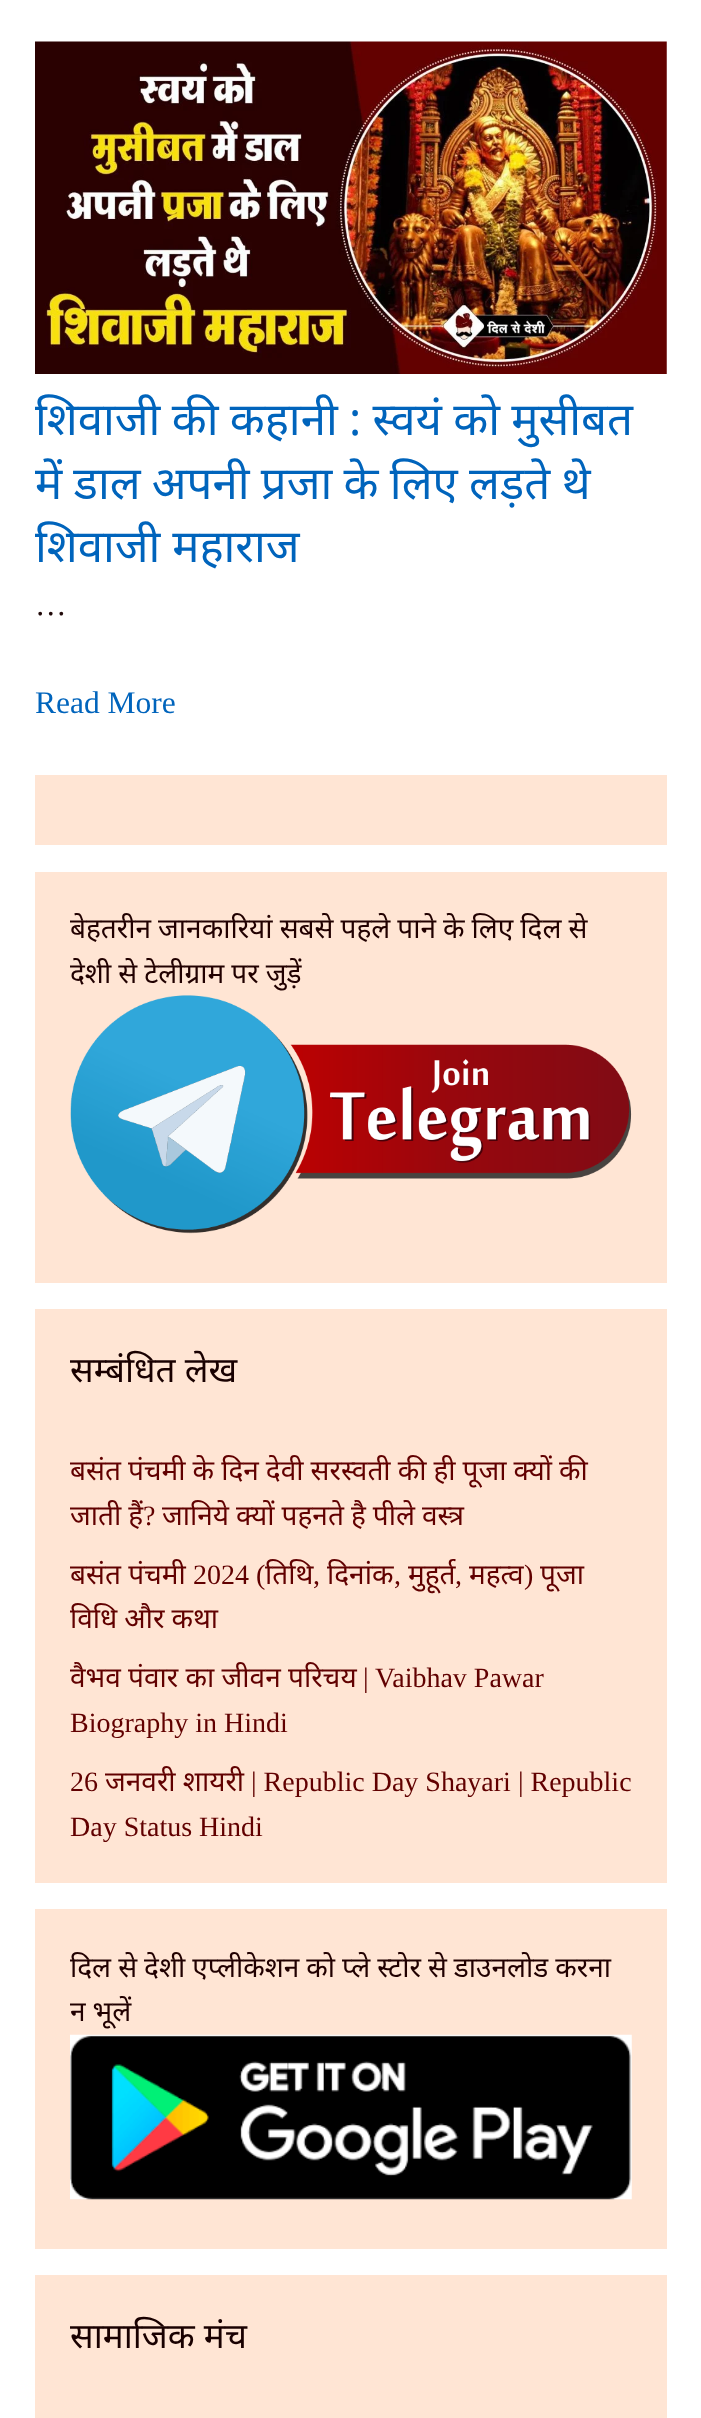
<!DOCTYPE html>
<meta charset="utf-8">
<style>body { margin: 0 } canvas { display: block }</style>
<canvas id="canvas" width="701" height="2418"></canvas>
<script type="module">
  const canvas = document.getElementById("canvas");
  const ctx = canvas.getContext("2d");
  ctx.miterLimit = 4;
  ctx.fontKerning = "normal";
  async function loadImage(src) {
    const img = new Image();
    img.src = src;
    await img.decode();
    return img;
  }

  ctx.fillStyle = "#ffffff";
  ctx.fillRect(0, 0, 701, 2418);
  ctx.drawImage(await loadImage("img1.png"), 35, 41, 632, 333);
  ctx.wordSpacing = "-0.5px";
  ctx.font = "45.5px Noto Sans";
  ctx.fillStyle = "#0064bc";
  ctx.fillText("शिवाजी की कहानी : स्वयं को मुसीबत", 35, 435);
  ctx.fillText("में डाल अपनी प्रजा के लिए लड़ते थे", 35, 499);
  ctx.wordSpacing = "0px";
  ctx.fillText("शिवाजी महाराज", 35, 562);
  ctx.font = "31.5px Liberation Serif";
  ctx.fillStyle = "#210a0a";
  ctx.fillText("…", 35, 615);
  ctx.fillStyle = "#0064bc";
  ctx.fillText("Read More", 35, 713);
  ctx.fillStyle = "#ffe5d4";
  ctx.fillRect(35, 775, 632, 70);
  ctx.fillRect(35, 872, 632, 411);
  ctx.wordSpacing = "-0.25px";
  ctx.font = "28px Noto Sans";
  ctx.fillStyle = "#210000";
  ctx.fillText("बेहतरीन जानकारियां सबसे पहले पाने के लिए दिल से", 70, 938);
  ctx.fillText("देशी से टेलीग्राम पर जुड़ें", 70, 983);
  ctx.drawImage(await loadImage("img2.png"), 70, 995, 562, 239);
  ctx.fillStyle = "#ffe5d4";
  ctx.fillRect(35, 1309, 632, 574);
  ctx.wordSpacing = "0px";
  ctx.font = "35px Noto Sans";
  ctx.fillStyle = "#190000";
  ctx.fillText("सम्बंधित लेख", 70, 1382);
  ctx.wordSpacing = "-0.25px";
  ctx.font = "28px Noto Sans";
  ctx.fillStyle = "#610000";
  ctx.fillText("बसंत पंचमी के दिन देवी सरस्वती की ही पूजा क्यों की", 70, 1480);
  ctx.fillText("जाती हैं", 70, 1525);
  ctx.wordSpacing = "0px";
  ctx.font = "28px Liberation Serif";
  ctx.fillText("?", 143, 1525);
  ctx.wordSpacing = "-0.25px";
  ctx.font = "28px Noto Sans";
  ctx.fillText("जानिये क्यों पहनते है पीले वस्त्र", 162, 1525);
  ctx.wordSpacing = "0px";
  ctx.fillText("बसंत पंचमी", 70, 1584);
  ctx.font = "28px Liberation Serif";
  ctx.fillText("2024 (", 193, 1584);
  ctx.font = "28px Noto Sans";
  ctx.fillText("तिथि", 265, 1584);
  ctx.font = "28px Liberation Serif";
  ctx.fillText(",", 313, 1584);
  ctx.font = "28px Noto Sans";
  ctx.fillText("दिनांक", 327, 1584);
  ctx.font = "28px Liberation Serif";
  ctx.fillText(",", 394, 1584);
  ctx.font = "28px Noto Sans";
  ctx.fillText("मुहूर्त", 408, 1584);
  ctx.fillText("महत्व", 469, 1584);
  ctx.font = "28px Liberation Serif";
  ctx.fillText(")", 524, 1584);
  ctx.font = "28px Noto Sans";
  ctx.fillText("पूजा", 540, 1584);
  ctx.font = "28px Liberation Serif";
  ctx.fillText(",", 455, 1584);
  ctx.wordSpacing = "-0.25px";
  ctx.font = "28px Noto Sans";
  ctx.fillText("विधि और कथा", 70, 1628);
  ctx.wordSpacing = "0px";
  ctx.fillText("वैभव पंवार का जीवन परिचय", 70, 1687);
  ctx.font = "28px Liberation Serif";
  ctx.fillText("| Vaibhav Pawar", 363, 1687);
  ctx.fillText("Biography in Hindi", 70, 1732);
  ctx.fillText("26", 70, 1791);
  ctx.font = "28px Noto Sans";
  ctx.fillText("जनवरी शायरी", 105, 1791);
  ctx.font = "28px Liberation Serif";
  ctx.fillText("| Republic Day Shayari | Republic", 251, 1791);
  ctx.fillText("Day Status Hindi", 70, 1836);
  ctx.fillStyle = "#ffe5d4";
  ctx.fillRect(35, 1909, 632, 340);
  ctx.wordSpacing = "-0.25px";
  ctx.font = "28px Noto Sans";
  ctx.fillStyle = "#210000";
  ctx.fillText("दिल से देशी एप्लीकेशन को प्ले स्टोर से डाउनलोड करना", 70, 1977);
  ctx.fillText("न भूलें", 70, 2021);
  ctx.drawImage(await loadImage("img3.png"), 70, 2034, 562, 166);
  ctx.fillStyle = "#ffe5d4";
  ctx.fillRect(35, 2275, 632, 143);
  ctx.wordSpacing = "0px";
  ctx.font = "35px Noto Sans";
  ctx.fillStyle = "#190000";
  ctx.fillText("सामाजिक मंच", 70, 2348);
</script>
